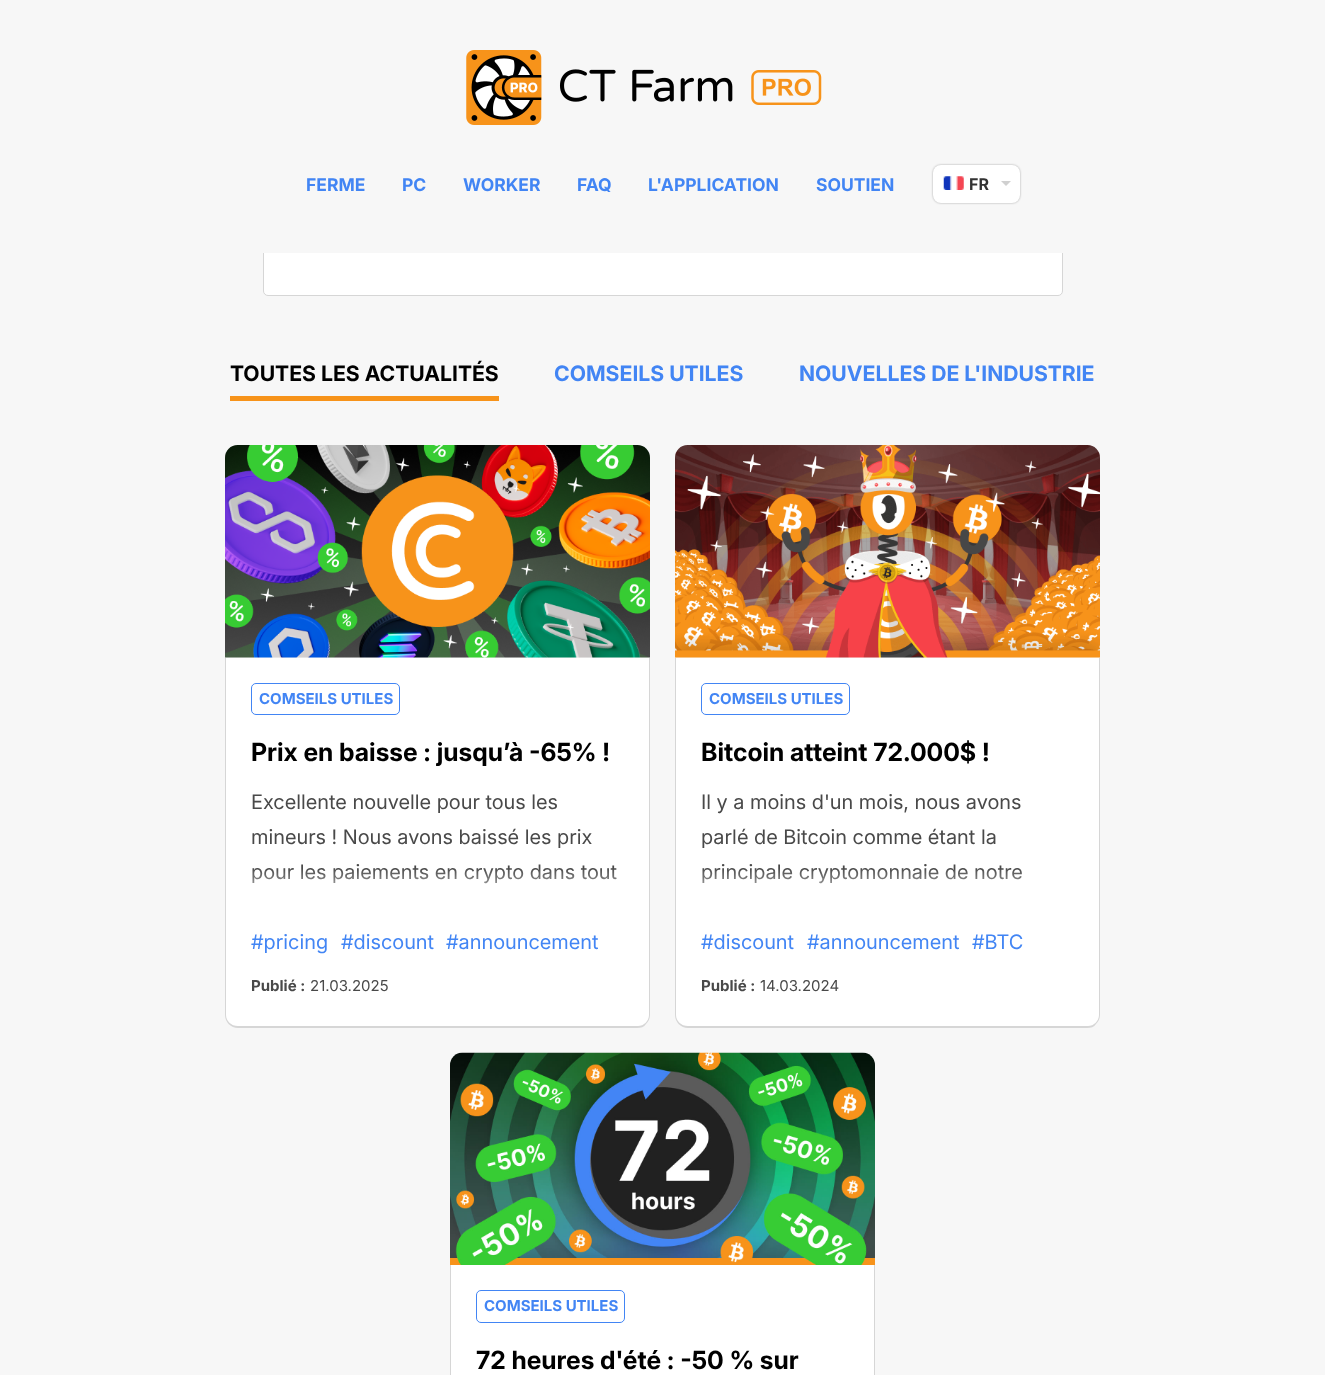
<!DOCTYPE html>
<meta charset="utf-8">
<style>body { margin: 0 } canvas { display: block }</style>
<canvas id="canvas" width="1325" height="1375"></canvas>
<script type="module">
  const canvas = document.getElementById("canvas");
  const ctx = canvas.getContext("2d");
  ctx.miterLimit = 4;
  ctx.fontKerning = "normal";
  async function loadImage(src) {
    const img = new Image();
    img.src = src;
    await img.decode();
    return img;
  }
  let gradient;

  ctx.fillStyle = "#f7f7f7";
  ctx.fillRect(0, 0, 1325, 1375);
  ctx.fillStyle = "#ffffff";
  ctx.beginPath();
  ctx.roundRect(263.5, 150.5, 799, 145, 4.5);
  ctx.fill();
  ctx.strokeStyle = "#d6d6d6";
  ctx.stroke();
  ctx.fillStyle = "#f7f7f7";
  ctx.fillRect(263, 150, 800, 103);
  ctx.drawImage(await loadImage("img1.png"), 466, 50, 356, 75);
  ctx.font = "bold 17.5px Inter";
  ctx.fillStyle = "#4285f4";
  ctx.fillText("FERME", 306, 191);
  ctx.fillText("PC", 402, 191);
  ctx.fillText("WORKER", 463, 191);
  ctx.fillText("FAQ", 577, 191);
  ctx.fillText("L'APPLICATION", 648, 191);
  ctx.fillText("SOUTIEN", 816, 191);
  ctx.fillStyle = "rgba(0, 0, 0, 0.3)";
  ctx.filter = "blur(1px)";
  ctx.beginPath();
  ctx.roundRect(933, 165, 87, 38, 8);
  ctx.fill();
  ctx.filter = "none";
  ctx.fillStyle = "#ffffff";
  ctx.beginPath();
  ctx.roundRect(933, 165, 87, 38, 8);
  ctx.fill();
  ctx.drawImage(await loadImage("img2.png"), 943, 176, 21, 14);
  ctx.font = "bold 16px Inter";
  ctx.fillStyle = "#323232";
  ctx.fillText("FR", 969, 190);
  ctx.fillStyle = "#d0d0d0";
  ctx.beginPath();
  ctx.moveTo(1001, 181);
  ctx.lineTo(1011, 181);
  ctx.lineTo(1006, 186);
  ctx.closePath();
  ctx.fill();
  ctx.fillStyle = "#f7931a";
  ctx.fillRect(230, 396, 269, 5);
  ctx.font = "bold 21.25px 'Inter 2'";
  ctx.fillStyle = "#000000";
  ctx.fillText("TOUTES LES ACTUALITÉS", 230, 381);
  ctx.fillStyle = "#4285f4";
  ctx.fillText("COMSEILS UTILES", 554, 381);
  ctx.fillText("NOUVELLES DE L'INDUSTRIE", 799, 381);
  ctx.drawImage(await loadImage("img3.png"), 225, 445, 425, 213);
  ctx.fillStyle = "#ffffff";
  ctx.fillRect(226, 658, 423, 250);
  ctx.fillStyle = "#d6d6d6";
  ctx.fillRect(649, 658, 1, 260);
  ctx.fillRect(225, 658, 1, 260);
  ctx.beginPath();
  ctx.roundRect(251.5, 683.5, 148, 31, 4.5);
  ctx.strokeStyle = "#4285f4";
  ctx.stroke();
  ctx.font = "bold 15px Inter";
  ctx.fillStyle = "#4285f4";
  ctx.fillText("COMSEILS UTILES", 259, 704);
  ctx.font = "bold 25px 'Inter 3'";
  ctx.fillStyle = "#000000";
  ctx.fillText("Prix en baisse : jusqu’à -65% !", 251, 761);
  ctx.font = "20px Inter";
  ctx.fillStyle = "#494949";
  ctx.fillText("Excellente nouvelle pour tous les", 251, 809);
  ctx.fillText("mineurs ! Nous avons baissé les prix", 251, 844);
  ctx.fillText("pour les paiements en crypto dans tout", 251, 879);
  gradient = ctx.createLinearGradient(438, 918, 438, 868);
  gradient.addColorStop(0.2, "#ffffff");
  gradient.addColorStop(1, "rgba(255, 255, 255, 0)");
  ctx.fillStyle = gradient;
  ctx.fillRect(226, 869, 423, 49);
  ctx.fillStyle = "#ffffff";
  ctx.beginPath();
  ctx.roundRect(226, 918, 423, 108, [0, 0, 11, 11]);
  ctx.fill();
  ctx.fillStyle = "#d6d6d6";
  ctx.beginPath();
  ctx.moveTo(226, 918);
  ctx.lineTo(225, 918);
  ctx.lineTo(225, 1015);
  ctx.bezierCurveTo(225, 1022, 231, 1028, 238, 1028);
  ctx.lineTo(637, 1028);
  ctx.bezierCurveTo(641, 1028, 644, 1027, 646, 1024);
  ctx.bezierCurveTo(648, 1022, 650, 1019, 650, 1015);
  ctx.lineTo(650, 918);
  ctx.lineTo(649, 918);
  ctx.lineTo(649, 1015);
  ctx.bezierCurveTo(649, 1021, 644, 1026, 638, 1026);
  ctx.lineTo(238, 1026);
  ctx.bezierCurveTo(231, 1026, 226, 1021, 226, 1015);
  ctx.closePath();
  ctx.fill();
  ctx.fillStyle = "#4285f4";
  ctx.fillText("#pricing", 251, 949);
  ctx.fillText("#discount", 341, 949);
  ctx.fillText("#announcement", 446, 949);
  ctx.font = "bold 15px Inter";
  ctx.fillStyle = "#494949";
  ctx.fillText("Publié :", 251, 991);
  ctx.font = "15px 'Inter 2'";
  ctx.fillText("21.03.2025", 310, 991);
  ctx.drawImage(await loadImage("img4.png"), 675, 445, 425, 213);
  ctx.fillStyle = "#ffffff";
  ctx.fillRect(676, 658, 423, 250);
  ctx.fillStyle = "#d6d6d6";
  ctx.fillRect(1099, 658, 1, 260);
  ctx.fillRect(675, 658, 1, 260);
  ctx.beginPath();
  ctx.roundRect(701.5, 683.5, 148, 31, 4.5);
  ctx.stroke();
  ctx.font = "bold 15px Inter";
  ctx.fillStyle = "#4285f4";
  ctx.fillText("COMSEILS UTILES", 709, 704);
  ctx.font = "bold 25px 'Inter 3'";
  ctx.fillStyle = "#000000";
  ctx.fillText("Bitcoin atteint 72.000$ !", 701, 761);
  ctx.font = "20px Inter";
  ctx.fillStyle = "#494949";
  ctx.fillText("Il y a moins d'un mois, nous avons", 701, 809);
  ctx.fillText("parlé de Bitcoin comme étant la", 701, 844);
  ctx.fillText("principale cryptomonnaie de notre", 701, 879);
  gradient = ctx.createLinearGradient(888, 918, 888, 868);
  gradient.addColorStop(0.2, "#ffffff");
  gradient.addColorStop(1, "rgba(255, 255, 255, 0)");
  ctx.fillStyle = gradient;
  ctx.fillRect(676, 869, 423, 49);
  ctx.fillStyle = "#ffffff";
  ctx.beginPath();
  ctx.roundRect(676, 918, 423, 108, [0, 0, 11, 11]);
  ctx.fill();
  ctx.fillStyle = "#d6d6d6";
  ctx.beginPath();
  ctx.moveTo(676, 918);
  ctx.lineTo(675, 918);
  ctx.lineTo(675, 1015);
  ctx.bezierCurveTo(675, 1022, 681, 1028, 688, 1028);
  ctx.lineTo(1087, 1028);
  ctx.bezierCurveTo(1091, 1028, 1094, 1027, 1096, 1024);
  ctx.bezierCurveTo(1098, 1022, 1100, 1019, 1100, 1015);
  ctx.lineTo(1100, 918);
  ctx.lineTo(1099, 918);
  ctx.lineTo(1099, 1015);
  ctx.bezierCurveTo(1099, 1021, 1094, 1026, 1088, 1026);
  ctx.lineTo(688, 1026);
  ctx.bezierCurveTo(681, 1026, 676, 1021, 676, 1015);
  ctx.closePath();
  ctx.fill();
  ctx.fillStyle = "#4285f4";
  ctx.fillText("#discount", 701, 949);
  ctx.fillText("#announcement", 807, 949);
  ctx.fillText("#BTC", 972, 949);
  ctx.font = "bold 15px Inter";
  ctx.fillStyle = "#494949";
  ctx.fillText("Publié :", 701, 991);
  ctx.font = "15px 'Inter 2'";
  ctx.fillText("14.03.2024", 760, 991);
  ctx.drawImage(await loadImage("img5.png"), 450, 1052, 425, 213);
  ctx.fillStyle = "#ffffff";
  ctx.fillRect(451, 1265, 423, 110);
  ctx.fillStyle = "#d6d6d6";
  ctx.fillRect(874, 1265, 1, 110);
  ctx.fillRect(450, 1265, 1, 110);
  ctx.beginPath();
  ctx.roundRect(476.5, 1290.5, 148, 32, 4.5);
  ctx.stroke();
  ctx.font = "bold 15px Inter";
  ctx.fillStyle = "#4285f4";
  ctx.fillText("COMSEILS UTILES", 484, 1311);
  ctx.font = "bold 25px 'Inter 3'";
  ctx.fillStyle = "#000000";
  ctx.fillText("72 heures d'été : -50 % sur", 476, 1369);
</script>
